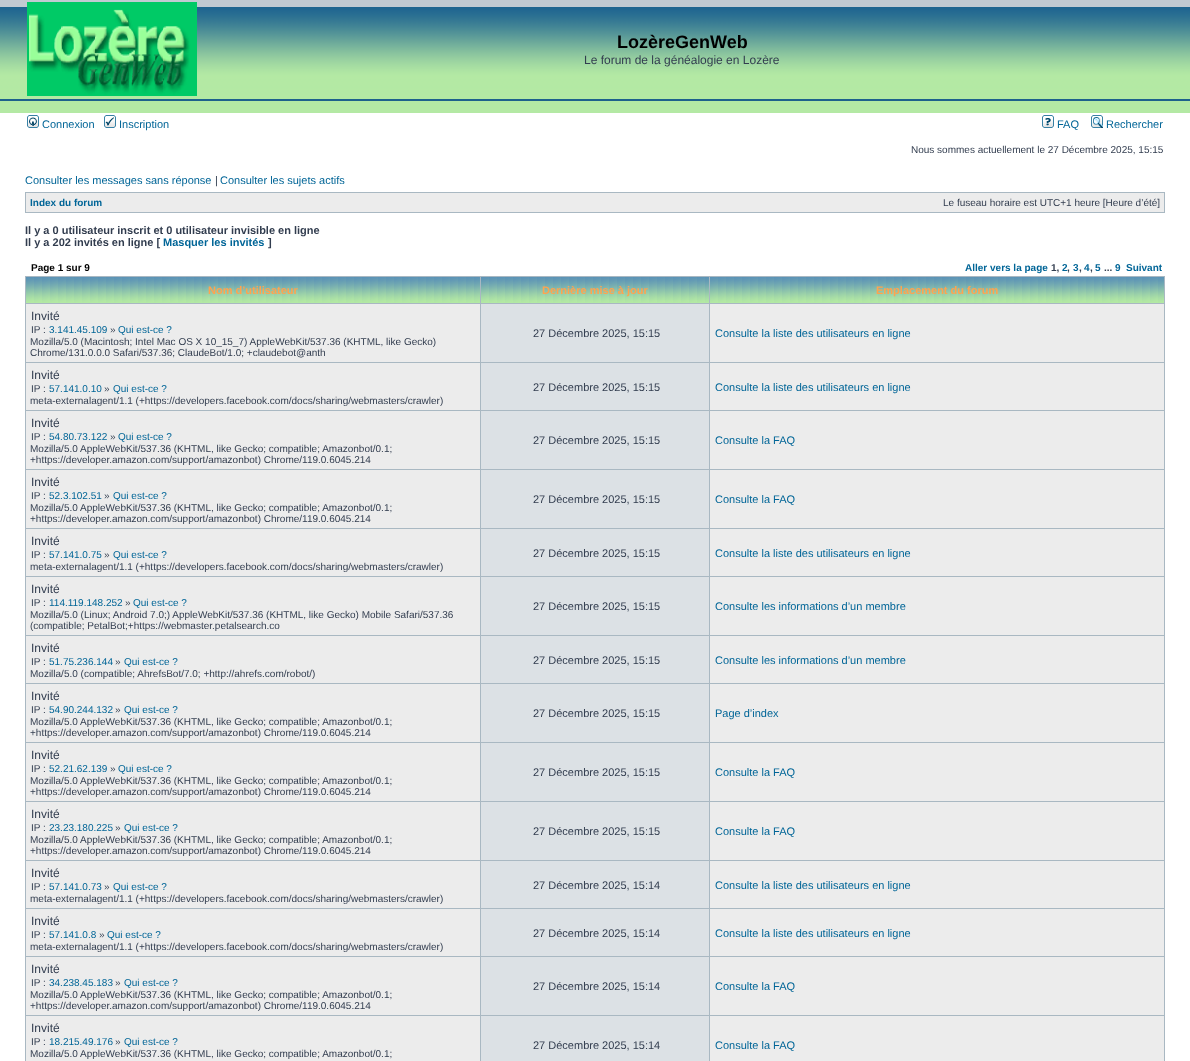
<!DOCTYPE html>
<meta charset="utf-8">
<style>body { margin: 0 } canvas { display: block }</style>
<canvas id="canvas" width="1190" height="1061"></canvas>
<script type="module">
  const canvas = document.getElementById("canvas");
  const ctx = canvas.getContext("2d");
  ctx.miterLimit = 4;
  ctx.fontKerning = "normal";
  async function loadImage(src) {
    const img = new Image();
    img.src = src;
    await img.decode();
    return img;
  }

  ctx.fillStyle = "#ffffff";
  ctx.fillRect(0, 0, 1190, 1061);
  ctx.fillStyle = "#c1cad2";
  ctx.fillRect(0, 0, 1190, 7);
  ctx.drawImage(await loadImage("img1.png"), 0, 7, 1190, 106);
  ctx.drawImage(await loadImage("img2.png"), 27, 2, 170, 94);
  ctx.font = "bold 18px Liberation Sans";
  ctx.fillStyle = "#000000";
  ctx.fillText("LozèreGenWeb", 617, 48);
  ctx.font = "12px Liberation Sans";
  ctx.fillStyle = "#323d4f";
  ctx.fillText("Le forum de la généalogie en Lozère", 584, 64);
  ctx.drawImage(await loadImage("img3.png"), 27, 115, 12, 13);
  ctx.font = "11px Liberation Sans";
  ctx.fillStyle = "#006597";
  ctx.fillText("Connexion", 42, 128);
  ctx.drawImage(await loadImage("img4.png"), 104, 115, 12, 13);
  ctx.fillText("Inscription", 119, 128);
  ctx.drawImage(await loadImage("img5.png"), 1042, 115, 12, 13);
  ctx.fillText("FAQ", 1057, 128);
  ctx.drawImage(await loadImage("img6.png"), 1091, 115, 12, 13);
  ctx.fillText("Rechercher", 1106, 128);
  ctx.font = "10px Liberation Sans";
  ctx.fillStyle = "#323d4f";
  ctx.fillText("Nous sommes actuellement le 27 Décembre 2025, 15:15", 911, 153);
  ctx.font = "11px Liberation Sans";
  ctx.fillStyle = "#006597";
  ctx.fillText("Consulter les messages sans réponse", 25, 184);
  ctx.fillStyle = "#323d4f";
  ctx.fillText("|", 215, 184);
  ctx.fillStyle = "#006597";
  ctx.fillText("Consulter les sujets actifs", 220, 184);
  ctx.fillStyle = "#a9b8c2";
  ctx.fillRect(25, 192, 1140, 21);
  ctx.fillStyle = "#ececec";
  ctx.fillRect(26, 193, 1138, 19);
  ctx.font = "bold 10px Liberation Sans";
  ctx.fillStyle = "#006597";
  ctx.fillText("Index du forum", 30, 206);
  ctx.font = "10px Liberation Sans";
  ctx.fillStyle = "#323d4f";
  ctx.fillText("Le fuseau horaire est UTC+1 heure [Heure d’été]", 943, 206);
  ctx.font = "bold 11px Liberation Sans";
  ctx.fillText("Il y a 0 utilisateur inscrit et 0 utilisateur invisible en ligne", 25, 234);
  ctx.fillText("Il y a 202 invités en ligne [", 25, 246);
  ctx.fillStyle = "#006597";
  ctx.fillText("Masquer les invités", 163, 246);
  ctx.fillStyle = "#323d4f";
  ctx.fillText("]", 268, 246);
  ctx.font = "bold 10px Liberation Sans";
  ctx.fillStyle = "#000000";
  ctx.fillText("Page 1 sur 9", 31, 271);
  ctx.fillStyle = "#006597";
  ctx.fillText("Aller vers la page", 965, 271);
  ctx.fillStyle = "#323d4f";
  ctx.fillText("1,", 1051, 271);
  ctx.fillStyle = "#006597";
  ctx.fillText("2", 1062, 271);
  ctx.fillStyle = "#323d4f";
  ctx.fillText(",", 1067, 271);
  ctx.fillStyle = "#006597";
  ctx.fillText("3", 1073, 271);
  ctx.fillStyle = "#323d4f";
  ctx.fillText(",", 1079, 271);
  ctx.fillStyle = "#006597";
  ctx.fillText("4", 1084, 271);
  ctx.fillStyle = "#323d4f";
  ctx.fillText(",", 1090, 271);
  ctx.fillStyle = "#006597";
  ctx.fillText("5", 1095, 271);
  ctx.fillStyle = "#323d4f";
  ctx.fillText("...", 1104, 271);
  ctx.fillStyle = "#006597";
  ctx.fillText("9", 1115, 271);
  ctx.fillText("Suivant", 1126, 271);
  ctx.fillStyle = "#a9b8c2";
  ctx.fillRect(25, 276, 1140, 785);
  ctx.drawImage(await loadImage("img7.png"), 26, 277, 454, 26);
  ctx.font = "bold 11px Liberation Sans";
  ctx.fillStyle = "#ffa34f";
  ctx.fillText("Nom d’utilisateur", 208, 294);
  ctx.drawImage(await loadImage("img8.png"), 481, 277, 228, 26);
  ctx.fillText("Dernière mise à jour", 542, 294);
  ctx.drawImage(await loadImage("img7.png"), 710, 277, 454, 26);
  ctx.fillText("Emplacement du forum", 876, 294);
  ctx.fillStyle = "#ececec";
  ctx.fillRect(26, 304, 454, 58);
  ctx.font = "12px Liberation Sans";
  ctx.fillStyle = "#323d4f";
  ctx.fillText("Invité", 31, 320);
  ctx.font = "10px Liberation Sans";
  ctx.fillText("IP :", 31, 333);
  ctx.fillStyle = "#006597";
  ctx.fillText("3.141.45.109", 49, 333);
  ctx.fillStyle = "#323d4f";
  ctx.fillText("»", 110, 333);
  ctx.fillStyle = "#006597";
  ctx.fillText("Qui est-ce ?", 118, 333);
  ctx.fillStyle = "#323d4f";
  ctx.fillText("Mozilla/5.0 (Macintosh; Intel Mac OS X 10_15_7) AppleWebKit/537.36 (KHTML, like Gecko)", 30, 345);
  ctx.fillText("Chrome/131.0.0.0 Safari/537.36; ClaudeBot/1.0; +claudebot@anth", 30, 356);
  ctx.fillStyle = "#dce1e5";
  ctx.fillRect(481, 304, 228, 58);
  ctx.font = "11px Liberation Sans";
  ctx.fillStyle = "#323d4f";
  ctx.fillText("27 Décembre 2025, 15:15", 533, 337);
  ctx.fillStyle = "#ececec";
  ctx.fillRect(710, 304, 454, 58);
  ctx.fillStyle = "#006597";
  ctx.fillText("Consulte la liste des utilisateurs en ligne", 715, 337);
  ctx.fillStyle = "#ececec";
  ctx.fillRect(26, 363, 454, 47);
  ctx.font = "12px Liberation Sans";
  ctx.fillStyle = "#323d4f";
  ctx.fillText("Invité", 31, 379);
  ctx.font = "10px Liberation Sans";
  ctx.fillText("IP :", 31, 392);
  ctx.fillStyle = "#006597";
  ctx.fillText("57.141.0.10", 49, 392);
  ctx.fillStyle = "#323d4f";
  ctx.fillText("»", 104, 392);
  ctx.fillStyle = "#006597";
  ctx.fillText("Qui est-ce ?", 113, 392);
  ctx.fillStyle = "#323d4f";
  ctx.fillText("meta-externalagent/1.1 (+https://developers.facebook.com/docs/sharing/webmasters/crawler)", 30, 404);
  ctx.fillStyle = "#dce1e5";
  ctx.fillRect(481, 363, 228, 47);
  ctx.font = "11px Liberation Sans";
  ctx.fillStyle = "#323d4f";
  ctx.fillText("27 Décembre 2025, 15:15", 533, 391);
  ctx.fillStyle = "#ececec";
  ctx.fillRect(710, 363, 454, 47);
  ctx.fillStyle = "#006597";
  ctx.fillText("Consulte la liste des utilisateurs en ligne", 715, 391);
  ctx.fillStyle = "#ececec";
  ctx.fillRect(26, 411, 454, 58);
  ctx.font = "12px Liberation Sans";
  ctx.fillStyle = "#323d4f";
  ctx.fillText("Invité", 31, 427);
  ctx.font = "10px Liberation Sans";
  ctx.fillText("IP :", 31, 440);
  ctx.fillStyle = "#006597";
  ctx.fillText("54.80.73.122", 49, 440);
  ctx.fillStyle = "#323d4f";
  ctx.fillText("»", 110, 440);
  ctx.fillStyle = "#006597";
  ctx.fillText("Qui est-ce ?", 118, 440);
  ctx.fillStyle = "#323d4f";
  ctx.fillText("Mozilla/5.0 AppleWebKit/537.36 (KHTML, like Gecko; compatible; Amazonbot/0.1;", 30, 452);
  ctx.fillText("+https://developer.amazon.com/support/amazonbot) Chrome/119.0.6045.214", 30, 463);
  ctx.fillStyle = "#dce1e5";
  ctx.fillRect(481, 411, 228, 58);
  ctx.font = "11px Liberation Sans";
  ctx.fillStyle = "#323d4f";
  ctx.fillText("27 Décembre 2025, 15:15", 533, 444);
  ctx.fillStyle = "#ececec";
  ctx.fillRect(710, 411, 454, 58);
  ctx.fillStyle = "#006597";
  ctx.fillText("Consulte la FAQ", 715, 444);
  ctx.fillStyle = "#ececec";
  ctx.fillRect(26, 470, 454, 58);
  ctx.font = "12px Liberation Sans";
  ctx.fillStyle = "#323d4f";
  ctx.fillText("Invité", 31, 486);
  ctx.font = "10px Liberation Sans";
  ctx.fillText("IP :", 31, 499);
  ctx.fillStyle = "#006597";
  ctx.fillText("52.3.102.51", 49, 499);
  ctx.fillStyle = "#323d4f";
  ctx.fillText("»", 104, 499);
  ctx.fillStyle = "#006597";
  ctx.fillText("Qui est-ce ?", 113, 499);
  ctx.fillStyle = "#323d4f";
  ctx.fillText("Mozilla/5.0 AppleWebKit/537.36 (KHTML, like Gecko; compatible; Amazonbot/0.1;", 30, 511);
  ctx.fillText("+https://developer.amazon.com/support/amazonbot) Chrome/119.0.6045.214", 30, 522);
  ctx.fillStyle = "#dce1e5";
  ctx.fillRect(481, 470, 228, 58);
  ctx.font = "11px Liberation Sans";
  ctx.fillStyle = "#323d4f";
  ctx.fillText("27 Décembre 2025, 15:15", 533, 503);
  ctx.fillStyle = "#ececec";
  ctx.fillRect(710, 470, 454, 58);
  ctx.fillStyle = "#006597";
  ctx.fillText("Consulte la FAQ", 715, 503);
  ctx.fillStyle = "#ececec";
  ctx.fillRect(26, 529, 454, 47);
  ctx.font = "12px Liberation Sans";
  ctx.fillStyle = "#323d4f";
  ctx.fillText("Invité", 31, 545);
  ctx.font = "10px Liberation Sans";
  ctx.fillText("IP :", 31, 558);
  ctx.fillStyle = "#006597";
  ctx.fillText("57.141.0.75", 49, 558);
  ctx.fillStyle = "#323d4f";
  ctx.fillText("»", 104, 558);
  ctx.fillStyle = "#006597";
  ctx.fillText("Qui est-ce ?", 113, 558);
  ctx.fillStyle = "#323d4f";
  ctx.fillText("meta-externalagent/1.1 (+https://developers.facebook.com/docs/sharing/webmasters/crawler)", 30, 570);
  ctx.fillStyle = "#dce1e5";
  ctx.fillRect(481, 529, 228, 47);
  ctx.font = "11px Liberation Sans";
  ctx.fillStyle = "#323d4f";
  ctx.fillText("27 Décembre 2025, 15:15", 533, 557);
  ctx.fillStyle = "#ececec";
  ctx.fillRect(710, 529, 454, 47);
  ctx.fillStyle = "#006597";
  ctx.fillText("Consulte la liste des utilisateurs en ligne", 715, 557);
  ctx.fillStyle = "#ececec";
  ctx.fillRect(26, 577, 454, 58);
  ctx.font = "12px Liberation Sans";
  ctx.fillStyle = "#323d4f";
  ctx.fillText("Invité", 31, 593);
  ctx.font = "10px Liberation Sans";
  ctx.fillText("IP :", 31, 606);
  ctx.fillStyle = "#006597";
  ctx.fillText("114.119.148.252", 49, 606);
  ctx.fillStyle = "#323d4f";
  ctx.fillText("»", 125, 606);
  ctx.fillStyle = "#006597";
  ctx.fillText("Qui est-ce ?", 133, 606);
  ctx.fillStyle = "#323d4f";
  ctx.fillText("Mozilla/5.0 (Linux; Android 7.0;) AppleWebKit/537.36 (KHTML, like Gecko) Mobile Safari/537.36", 30, 618);
  ctx.fillText("(compatible; PetalBot;+https://webmaster.petalsearch.co", 30, 629);
  ctx.fillStyle = "#dce1e5";
  ctx.fillRect(481, 577, 228, 58);
  ctx.font = "11px Liberation Sans";
  ctx.fillStyle = "#323d4f";
  ctx.fillText("27 Décembre 2025, 15:15", 533, 610);
  ctx.fillStyle = "#ececec";
  ctx.fillRect(710, 577, 454, 58);
  ctx.fillStyle = "#006597";
  ctx.fillText("Consulte les informations d’un membre", 715, 610);
  ctx.fillStyle = "#ececec";
  ctx.fillRect(26, 636, 454, 47);
  ctx.font = "12px Liberation Sans";
  ctx.fillStyle = "#323d4f";
  ctx.fillText("Invité", 31, 652);
  ctx.font = "10px Liberation Sans";
  ctx.fillText("IP :", 31, 665);
  ctx.fillStyle = "#006597";
  ctx.fillText("51.75.236.144", 49, 665);
  ctx.fillStyle = "#323d4f";
  ctx.fillText("»", 115, 665);
  ctx.fillStyle = "#006597";
  ctx.fillText("Qui est-ce ?", 124, 665);
  ctx.fillStyle = "#323d4f";
  ctx.fillText("Mozilla/5.0 (compatible; AhrefsBot/7.0; +http://ahrefs.com/robot/)", 30, 677);
  ctx.fillStyle = "#dce1e5";
  ctx.fillRect(481, 636, 228, 47);
  ctx.font = "11px Liberation Sans";
  ctx.fillStyle = "#323d4f";
  ctx.fillText("27 Décembre 2025, 15:15", 533, 664);
  ctx.fillStyle = "#ececec";
  ctx.fillRect(710, 636, 454, 47);
  ctx.fillStyle = "#006597";
  ctx.fillText("Consulte les informations d’un membre", 715, 664);
  ctx.fillStyle = "#ececec";
  ctx.fillRect(26, 684, 454, 58);
  ctx.font = "12px Liberation Sans";
  ctx.fillStyle = "#323d4f";
  ctx.fillText("Invité", 31, 700);
  ctx.font = "10px Liberation Sans";
  ctx.fillText("IP :", 31, 713);
  ctx.fillStyle = "#006597";
  ctx.fillText("54.90.244.132", 49, 713);
  ctx.fillStyle = "#323d4f";
  ctx.fillText("»", 115, 713);
  ctx.fillStyle = "#006597";
  ctx.fillText("Qui est-ce ?", 124, 713);
  ctx.fillStyle = "#323d4f";
  ctx.fillText("Mozilla/5.0 AppleWebKit/537.36 (KHTML, like Gecko; compatible; Amazonbot/0.1;", 30, 725);
  ctx.fillText("+https://developer.amazon.com/support/amazonbot) Chrome/119.0.6045.214", 30, 736);
  ctx.fillStyle = "#dce1e5";
  ctx.fillRect(481, 684, 228, 58);
  ctx.font = "11px Liberation Sans";
  ctx.fillStyle = "#323d4f";
  ctx.fillText("27 Décembre 2025, 15:15", 533, 717);
  ctx.fillStyle = "#ececec";
  ctx.fillRect(710, 684, 454, 58);
  ctx.fillStyle = "#006597";
  ctx.fillText("Page d’index", 715, 717);
  ctx.fillStyle = "#ececec";
  ctx.fillRect(26, 743, 454, 58);
  ctx.font = "12px Liberation Sans";
  ctx.fillStyle = "#323d4f";
  ctx.fillText("Invité", 31, 759);
  ctx.font = "10px Liberation Sans";
  ctx.fillText("IP :", 31, 772);
  ctx.fillStyle = "#006597";
  ctx.fillText("52.21.62.139", 49, 772);
  ctx.fillStyle = "#323d4f";
  ctx.fillText("»", 110, 772);
  ctx.fillStyle = "#006597";
  ctx.fillText("Qui est-ce ?", 118, 772);
  ctx.fillStyle = "#323d4f";
  ctx.fillText("Mozilla/5.0 AppleWebKit/537.36 (KHTML, like Gecko; compatible; Amazonbot/0.1;", 30, 784);
  ctx.fillText("+https://developer.amazon.com/support/amazonbot) Chrome/119.0.6045.214", 30, 795);
  ctx.fillStyle = "#dce1e5";
  ctx.fillRect(481, 743, 228, 58);
  ctx.font = "11px Liberation Sans";
  ctx.fillStyle = "#323d4f";
  ctx.fillText("27 Décembre 2025, 15:15", 533, 776);
  ctx.fillStyle = "#ececec";
  ctx.fillRect(710, 743, 454, 58);
  ctx.fillStyle = "#006597";
  ctx.fillText("Consulte la FAQ", 715, 776);
  ctx.fillStyle = "#ececec";
  ctx.fillRect(26, 802, 454, 58);
  ctx.font = "12px Liberation Sans";
  ctx.fillStyle = "#323d4f";
  ctx.fillText("Invité", 31, 818);
  ctx.font = "10px Liberation Sans";
  ctx.fillText("IP :", 31, 831);
  ctx.fillStyle = "#006597";
  ctx.fillText("23.23.180.225", 49, 831);
  ctx.fillStyle = "#323d4f";
  ctx.fillText("»", 115, 831);
  ctx.fillStyle = "#006597";
  ctx.fillText("Qui est-ce ?", 124, 831);
  ctx.fillStyle = "#323d4f";
  ctx.fillText("Mozilla/5.0 AppleWebKit/537.36 (KHTML, like Gecko; compatible; Amazonbot/0.1;", 30, 843);
  ctx.fillText("+https://developer.amazon.com/support/amazonbot) Chrome/119.0.6045.214", 30, 854);
  ctx.fillStyle = "#dce1e5";
  ctx.fillRect(481, 802, 228, 58);
  ctx.font = "11px Liberation Sans";
  ctx.fillStyle = "#323d4f";
  ctx.fillText("27 Décembre 2025, 15:15", 533, 835);
  ctx.fillStyle = "#ececec";
  ctx.fillRect(710, 802, 454, 58);
  ctx.fillStyle = "#006597";
  ctx.fillText("Consulte la FAQ", 715, 835);
  ctx.fillStyle = "#ececec";
  ctx.fillRect(26, 861, 454, 47);
  ctx.font = "12px Liberation Sans";
  ctx.fillStyle = "#323d4f";
  ctx.fillText("Invité", 31, 877);
  ctx.font = "10px Liberation Sans";
  ctx.fillText("IP :", 31, 890);
  ctx.fillStyle = "#006597";
  ctx.fillText("57.141.0.73", 49, 890);
  ctx.fillStyle = "#323d4f";
  ctx.fillText("»", 104, 890);
  ctx.fillStyle = "#006597";
  ctx.fillText("Qui est-ce ?", 113, 890);
  ctx.fillStyle = "#323d4f";
  ctx.fillText("meta-externalagent/1.1 (+https://developers.facebook.com/docs/sharing/webmasters/crawler)", 30, 902);
  ctx.fillStyle = "#dce1e5";
  ctx.fillRect(481, 861, 228, 47);
  ctx.font = "11px Liberation Sans";
  ctx.fillStyle = "#323d4f";
  ctx.fillText("27 Décembre 2025, 15:14", 533, 889);
  ctx.fillStyle = "#ececec";
  ctx.fillRect(710, 861, 454, 47);
  ctx.fillStyle = "#006597";
  ctx.fillText("Consulte la liste des utilisateurs en ligne", 715, 889);
  ctx.fillStyle = "#ececec";
  ctx.fillRect(26, 909, 454, 47);
  ctx.font = "12px Liberation Sans";
  ctx.fillStyle = "#323d4f";
  ctx.fillText("Invité", 31, 925);
  ctx.font = "10px Liberation Sans";
  ctx.fillText("IP :", 31, 938);
  ctx.fillStyle = "#006597";
  ctx.fillText("57.141.0.8", 49, 938);
  ctx.fillStyle = "#323d4f";
  ctx.fillText("»", 99, 938);
  ctx.fillStyle = "#006597";
  ctx.fillText("Qui est-ce ?", 107, 938);
  ctx.fillStyle = "#323d4f";
  ctx.fillText("meta-externalagent/1.1 (+https://developers.facebook.com/docs/sharing/webmasters/crawler)", 30, 950);
  ctx.fillStyle = "#dce1e5";
  ctx.fillRect(481, 909, 228, 47);
  ctx.font = "11px Liberation Sans";
  ctx.fillStyle = "#323d4f";
  ctx.fillText("27 Décembre 2025, 15:14", 533, 937);
  ctx.fillStyle = "#ececec";
  ctx.fillRect(710, 909, 454, 47);
  ctx.fillStyle = "#006597";
  ctx.fillText("Consulte la liste des utilisateurs en ligne", 715, 937);
  ctx.fillStyle = "#ececec";
  ctx.fillRect(26, 957, 454, 58);
  ctx.font = "12px Liberation Sans";
  ctx.fillStyle = "#323d4f";
  ctx.fillText("Invité", 31, 973);
  ctx.font = "10px Liberation Sans";
  ctx.fillText("IP :", 31, 986);
  ctx.fillStyle = "#006597";
  ctx.fillText("34.238.45.183", 49, 986);
  ctx.fillStyle = "#323d4f";
  ctx.fillText("»", 115, 986);
  ctx.fillStyle = "#006597";
  ctx.fillText("Qui est-ce ?", 124, 986);
  ctx.fillStyle = "#323d4f";
  ctx.fillText("Mozilla/5.0 AppleWebKit/537.36 (KHTML, like Gecko; compatible; Amazonbot/0.1;", 30, 998);
  ctx.fillText("+https://developer.amazon.com/support/amazonbot) Chrome/119.0.6045.214", 30, 1009);
  ctx.fillStyle = "#dce1e5";
  ctx.fillRect(481, 957, 228, 58);
  ctx.font = "11px Liberation Sans";
  ctx.fillStyle = "#323d4f";
  ctx.fillText("27 Décembre 2025, 15:14", 533, 990);
  ctx.fillStyle = "#ececec";
  ctx.fillRect(710, 957, 454, 58);
  ctx.fillStyle = "#006597";
  ctx.fillText("Consulte la FAQ", 715, 990);
  ctx.fillStyle = "#ececec";
  ctx.fillRect(26, 1016, 454, 45);
  ctx.font = "12px Liberation Sans";
  ctx.fillStyle = "#323d4f";
  ctx.fillText("Invité", 31, 1032);
  ctx.font = "10px Liberation Sans";
  ctx.fillText("IP :", 31, 1045);
  ctx.fillStyle = "#006597";
  ctx.fillText("18.215.49.176", 49, 1045);
  ctx.fillStyle = "#323d4f";
  ctx.fillText("»", 115, 1045);
  ctx.fillStyle = "#006597";
  ctx.fillText("Qui est-ce ?", 124, 1045);
  ctx.fillStyle = "#323d4f";
  ctx.fillText("Mozilla/5.0 AppleWebKit/537.36 (KHTML, like Gecko; compatible; Amazonbot/0.1;", 30, 1057);
  ctx.fillStyle = "#dce1e5";
  ctx.fillRect(481, 1016, 228, 45);
  ctx.font = "11px Liberation Sans";
  ctx.fillStyle = "#323d4f";
  ctx.fillText("27 Décembre 2025, 15:14", 533, 1049);
  ctx.fillStyle = "#ececec";
  ctx.fillRect(710, 1016, 454, 45);
  ctx.fillStyle = "#006597";
  ctx.fillText("Consulte la FAQ", 715, 1049);
</script>
